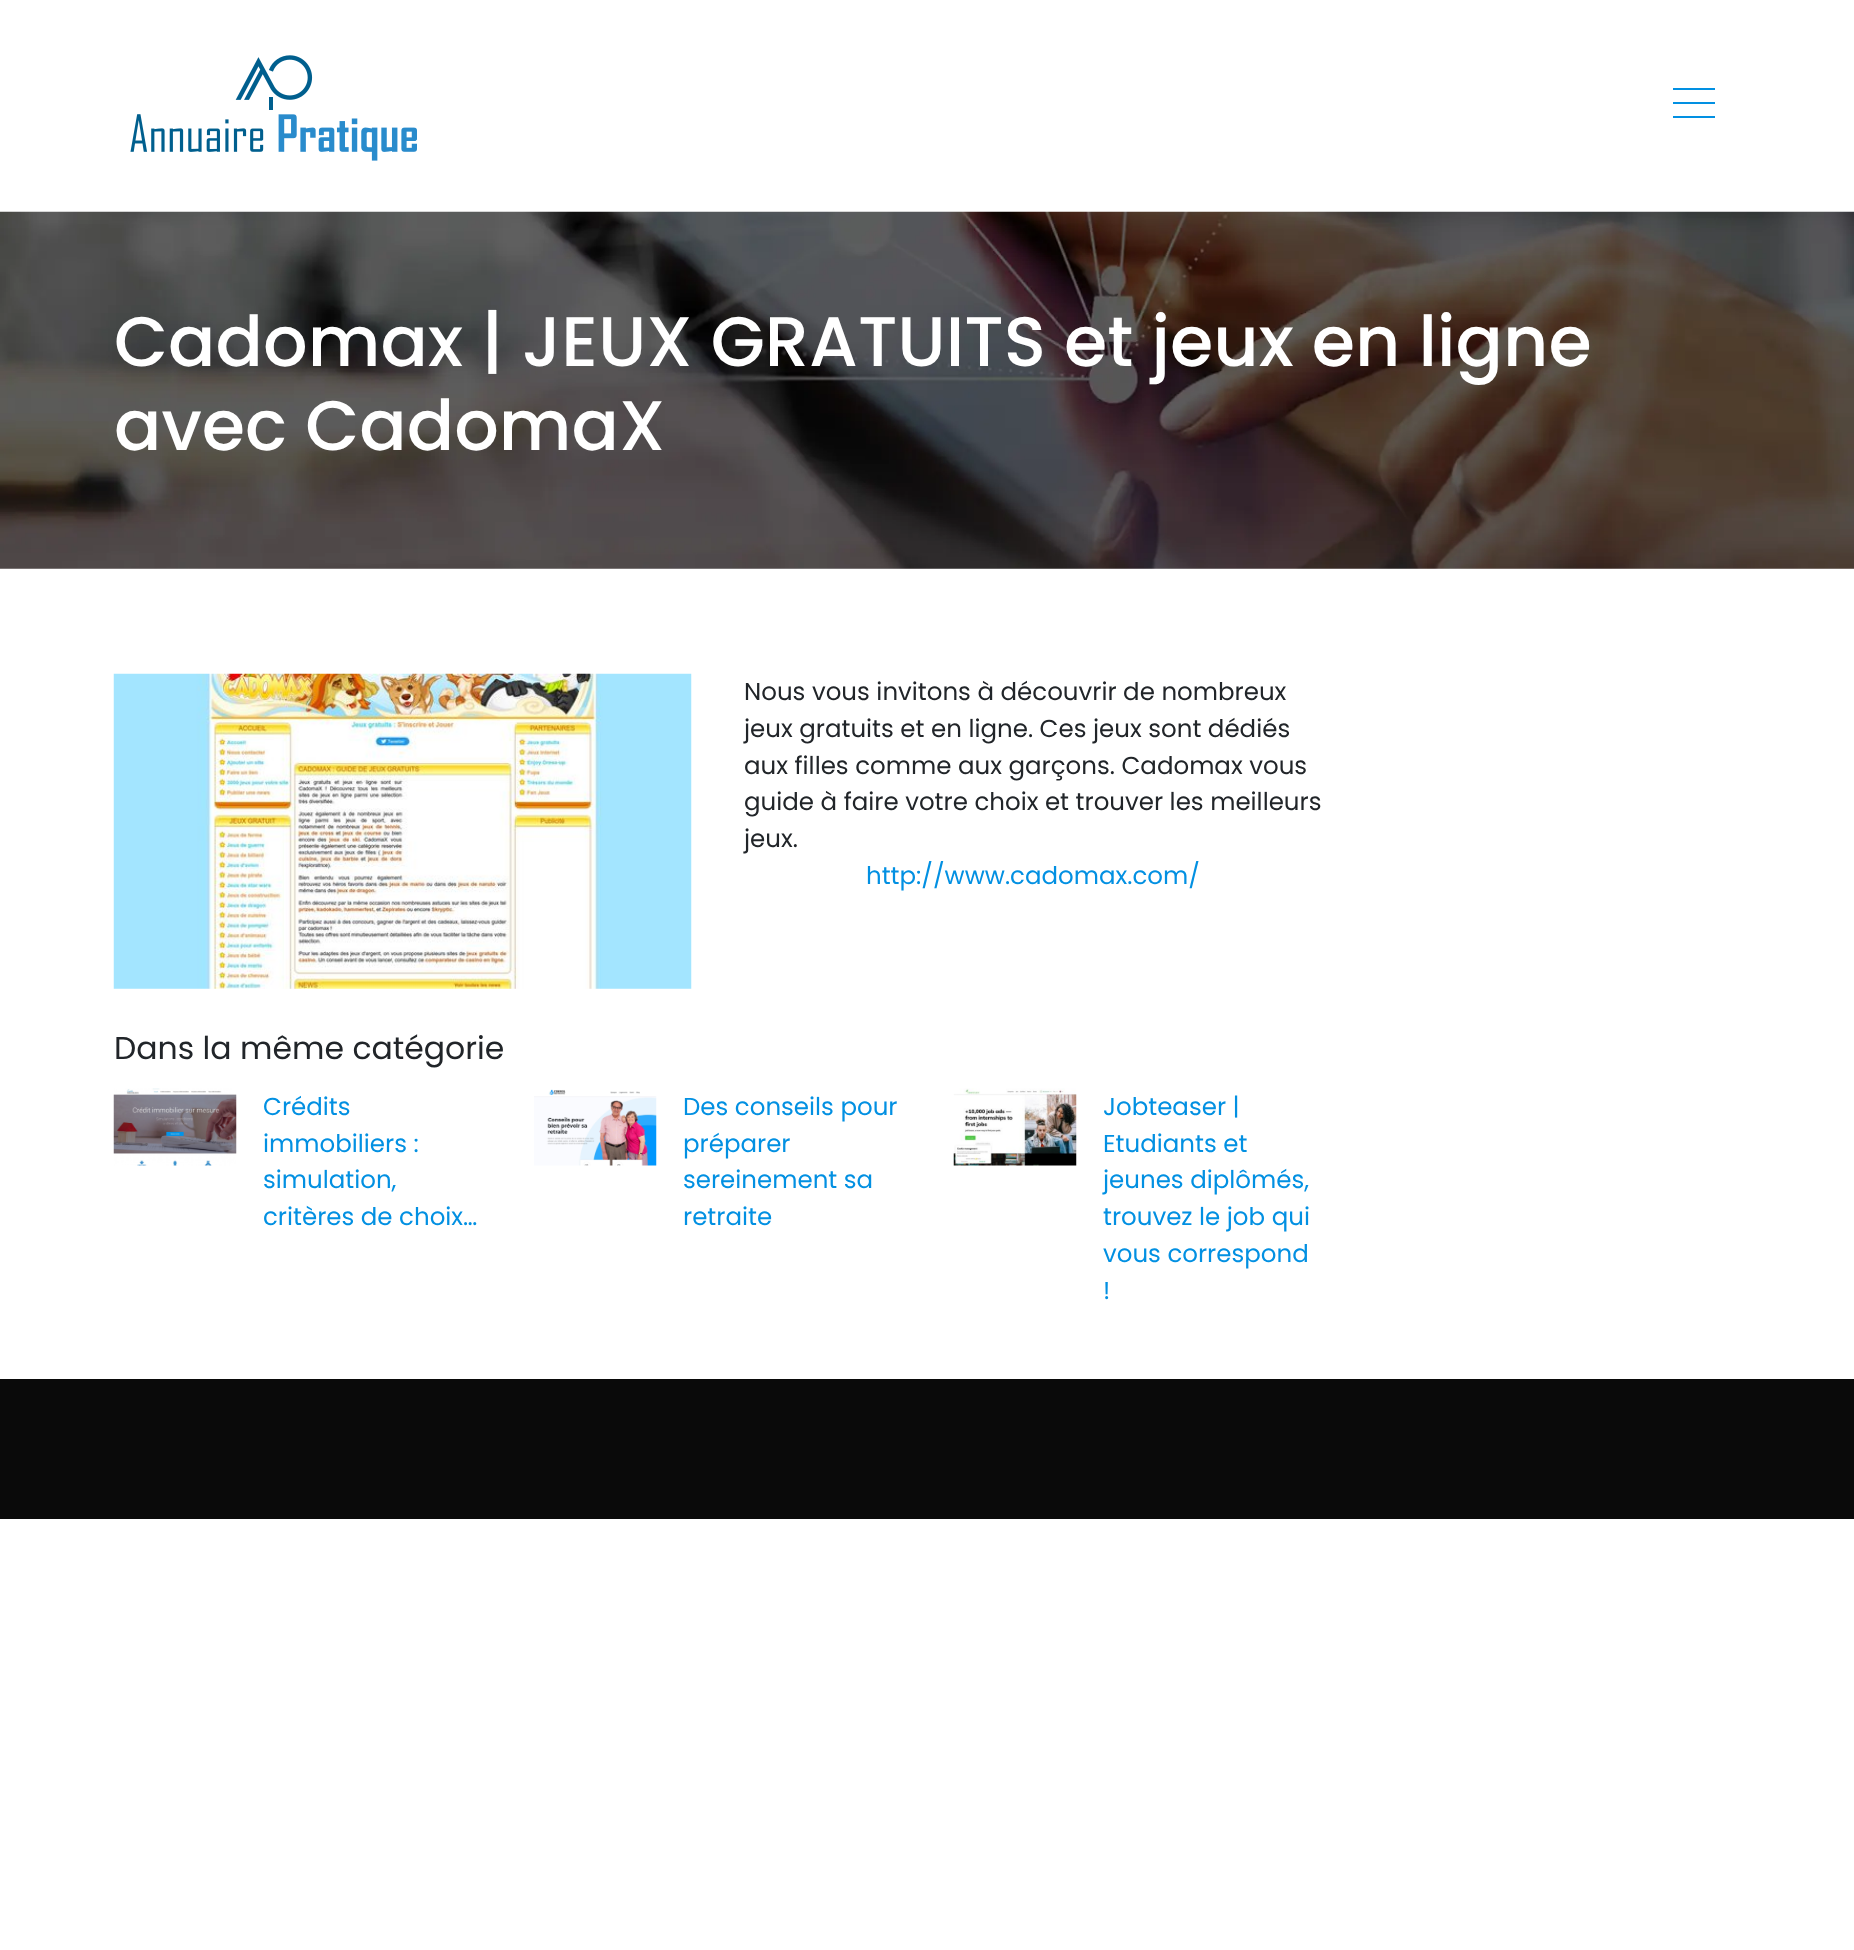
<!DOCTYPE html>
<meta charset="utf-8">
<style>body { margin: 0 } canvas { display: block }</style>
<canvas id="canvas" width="1854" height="1950"></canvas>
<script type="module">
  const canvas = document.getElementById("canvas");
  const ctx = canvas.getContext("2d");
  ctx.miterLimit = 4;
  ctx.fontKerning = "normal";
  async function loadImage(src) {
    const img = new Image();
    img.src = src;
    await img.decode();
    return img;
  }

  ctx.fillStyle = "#ffffff";
  ctx.fillRect(0, 0, 1854, 1950);
  ctx.drawImage(await loadImage("img1.png"), 130, 55, 287, 106);
  ctx.fillStyle = "#0290e2";
  ctx.fillRect(1673, 88, 42, 2);
  ctx.fillRect(1673, 102, 42, 2);
  ctx.fillRect(1673, 116, 42, 2);
  ctx.drawImage(await loadImage("img2.png"), 0, 211, 1854, 358);
  ctx.font = "500 70px Poppins";
  ctx.fillStyle = "#ffffff";
  ctx.fillText("Cadomax | JEUX GRATUITS et jeux en ligne", 114, 366);
  ctx.fillText("avec CadomaX", 114, 450);
  ctx.drawImage(await loadImage("img3.png"), 113, 673, 579, 316);
  ctx.font = "24.5px Poppins";
  ctx.fillStyle = "#212529";
  ctx.fillText("Nous vous invitons à découvrir de nombreux", 744, 700);
  ctx.fillText("jeux gratuits et en ligne. Ces jeux sont dédiés", 744, 737);
  ctx.fillText("aux filles comme aux garçons. Cadomax vous", 744, 774);
  ctx.fillText("guide à faire votre choix et trouver les meilleurs", 744, 810);
  ctx.fillText("jeux.", 744, 847);
  ctx.fillStyle = "#0290e2";
  ctx.fillText("http://www.cadomax.com/", 866, 884);
  ctx.font = "31.5px Poppins";
  ctx.fillStyle = "#212529";
  ctx.fillText("Dans la même catégorie", 114, 1059);
  ctx.drawImage(await loadImage("img4.png"), 113, 1088, 124, 78);
  ctx.font = "24.5px Poppins";
  ctx.fillStyle = "#0290e2";
  ctx.fillText("Crédits", 263, 1115);
  ctx.fillText("immobiliers :", 263, 1152);
  ctx.fillText("simulation,", 263, 1188);
  ctx.fillText("critères de choix…", 263, 1225);
  ctx.drawImage(await loadImage("img5.png"), 534, 1089, 123, 77);
  ctx.fillText("Des conseils pour", 683, 1115);
  ctx.fillText("préparer", 683, 1152);
  ctx.fillText("sereinement sa", 683, 1188);
  ctx.fillText("retraite", 683, 1225);
  ctx.drawImage(await loadImage("img6.png"), 953, 1088, 124, 78);
  ctx.fillText("Jobteaser |", 1103, 1115);
  ctx.fillText("Etudiants et", 1103, 1152);
  ctx.fillText("jeunes diplômés,", 1103, 1188);
  ctx.fillText("trouvez le job qui", 1103, 1225);
  ctx.fillText("vous correspond", 1103, 1262);
  ctx.fillText("!", 1103, 1299);
  ctx.fillStyle = "#0a0a0a";
  ctx.fillRect(0, 1379, 1854, 140);
</script>
